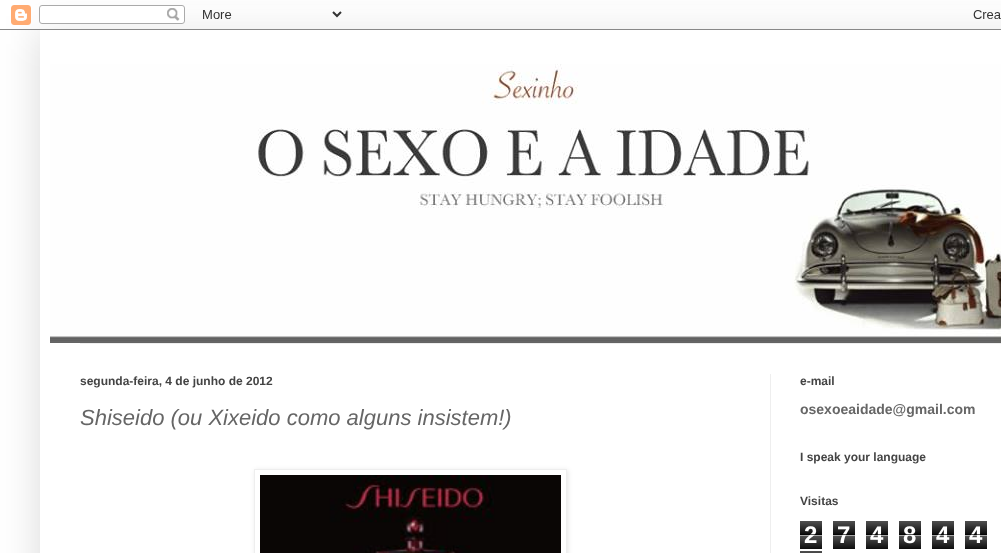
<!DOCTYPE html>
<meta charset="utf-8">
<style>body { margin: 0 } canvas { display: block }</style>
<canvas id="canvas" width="1001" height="553"></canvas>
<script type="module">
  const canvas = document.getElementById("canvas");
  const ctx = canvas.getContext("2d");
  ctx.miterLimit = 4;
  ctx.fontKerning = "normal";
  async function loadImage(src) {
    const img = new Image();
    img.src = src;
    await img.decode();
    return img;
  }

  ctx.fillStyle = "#ffffff";
  ctx.fillRect(0, 0, 1001, 553);
  ctx.save();
  ctx.beginPath();
  ctx.moveTo(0, 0);
  ctx.lineTo(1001, 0);
  ctx.lineTo(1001, 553);
  ctx.lineTo(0, 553);
  ctx.closePath();
  ctx.moveTo(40, 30);
  ctx.lineTo(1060, 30);
  ctx.lineTo(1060, 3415);
  ctx.lineTo(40, 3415);
  ctx.closePath();
  ctx.clip("evenodd");
  ctx.fillStyle = "rgba(0, 0, 0, 0.15)";
  ctx.filter = "blur(20px)";
  ctx.beginPath();
  ctx.rect(40, 30, 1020, 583);
  ctx.fill();
  ctx.filter = "none";
  ctx.restore();
  ctx.drawImage(await loadImage("img1.png"), 0, 5, 1001, 25);
  ctx.drawImage(await loadImage("img2.png"), 50, 64, 951, 279);
  ctx.fillStyle = "#eeeeee";
  ctx.fillRect(80, 343, 921, 1);
  ctx.fillRect(770, 374, 1, 179);
  ctx.font = "bold 12px Liberation Sans";
  ctx.fillStyle = "#444444";
  ctx.fillText("segunda-feira, 4 de junho de 2012", 80, 385);
  ctx.font = "italic 22px Liberation Sans";
  ctx.fillStyle = "#666666";
  ctx.fillText("Shiseido (ou Xixeido como alguns insistem!)", 80, 425);
  ctx.save();
  ctx.beginPath();
  ctx.moveTo(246, 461);
  ctx.lineTo(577, 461);
  ctx.lineTo(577, 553);
  ctx.lineTo(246, 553);
  ctx.closePath();
  ctx.moveTo(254, 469);
  ctx.lineTo(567, 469);
  ctx.lineTo(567, 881);
  ctx.lineTo(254, 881);
  ctx.closePath();
  ctx.clip("evenodd");
  ctx.fillStyle = "rgba(0, 0, 0, 0.1)";
  ctx.filter = "blur(2.5px)";
  ctx.beginPath();
  ctx.rect(255, 470, 313, 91);
  ctx.fill();
  ctx.filter = "none";
  ctx.restore();
  ctx.strokeStyle = "#eeeeee";
  ctx.strokeRect(254.5, 469.5, 312, 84);
  ctx.drawImage(await loadImage("img3.png"), 260, 475, 301, 78);
  ctx.font = "bold 12px Liberation Sans";
  ctx.fillStyle = "#444444";
  ctx.fillText("e-mail", 800, 385);
  ctx.font = "bold 14px Liberation Sans";
  ctx.fillStyle = "#666666";
  ctx.fillText("osexoeaidade@gmail.com", 800, 414);
  ctx.font = "bold 12px Liberation Sans";
  ctx.fillStyle = "#444444";
  ctx.fillText("I speak your language", 800, 461);
  ctx.fillText("Visitas", 800, 505);
  ctx.drawImage(await loadImage("img4.png"), 800, 521, 22, 28);
  ctx.font = "bold 24px Liberation Sans";
  ctx.fillStyle = "#ffffff";
  ctx.fillText("2", 804, 543);
  ctx.fillStyle = "rgba(0, 0, 0, 0.65)";
  ctx.fillRect(800, 534, 22, 1);
  ctx.fillStyle = "rgba(255, 255, 255, 0.65)";
  ctx.fillRect(800, 535, 22, 1);
  ctx.drawImage(await loadImage("img4.png"), 833, 521, 22, 28);
  ctx.fillStyle = "#ffffff";
  ctx.fillText("7", 837, 543);
  ctx.fillStyle = "rgba(0, 0, 0, 0.65)";
  ctx.fillRect(833, 534, 22, 1);
  ctx.fillStyle = "rgba(255, 255, 255, 0.65)";
  ctx.fillRect(833, 535, 22, 1);
  ctx.drawImage(await loadImage("img4.png"), 866, 521, 22, 28);
  ctx.fillStyle = "#ffffff";
  ctx.fillText("4", 870, 543);
  ctx.fillStyle = "rgba(0, 0, 0, 0.65)";
  ctx.fillRect(866, 534, 22, 1);
  ctx.fillStyle = "rgba(255, 255, 255, 0.65)";
  ctx.fillRect(866, 535, 22, 1);
  ctx.drawImage(await loadImage("img4.png"), 899, 521, 22, 28);
  ctx.fillStyle = "#ffffff";
  ctx.fillText("8", 903, 543);
  ctx.fillStyle = "rgba(0, 0, 0, 0.65)";
  ctx.fillRect(899, 534, 22, 1);
  ctx.fillStyle = "rgba(255, 255, 255, 0.65)";
  ctx.fillRect(899, 535, 22, 1);
  ctx.drawImage(await loadImage("img4.png"), 932, 521, 22, 28);
  ctx.fillStyle = "#ffffff";
  ctx.fillText("4", 936, 543);
  ctx.fillStyle = "rgba(0, 0, 0, 0.65)";
  ctx.fillRect(932, 534, 22, 1);
  ctx.fillStyle = "rgba(255, 255, 255, 0.65)";
  ctx.fillRect(932, 535, 22, 1);
  ctx.drawImage(await loadImage("img4.png"), 965, 521, 22, 28);
  ctx.fillStyle = "#ffffff";
  ctx.fillText("4", 969, 543);
  ctx.fillStyle = "rgba(0, 0, 0, 0.65)";
  ctx.fillRect(965, 534, 22, 1);
  ctx.fillStyle = "rgba(255, 255, 255, 0.65)";
  ctx.fillRect(965, 535, 22, 1);
  ctx.drawImage(await loadImage("img5.png"), 800, 551, 22, 2);
</script>
